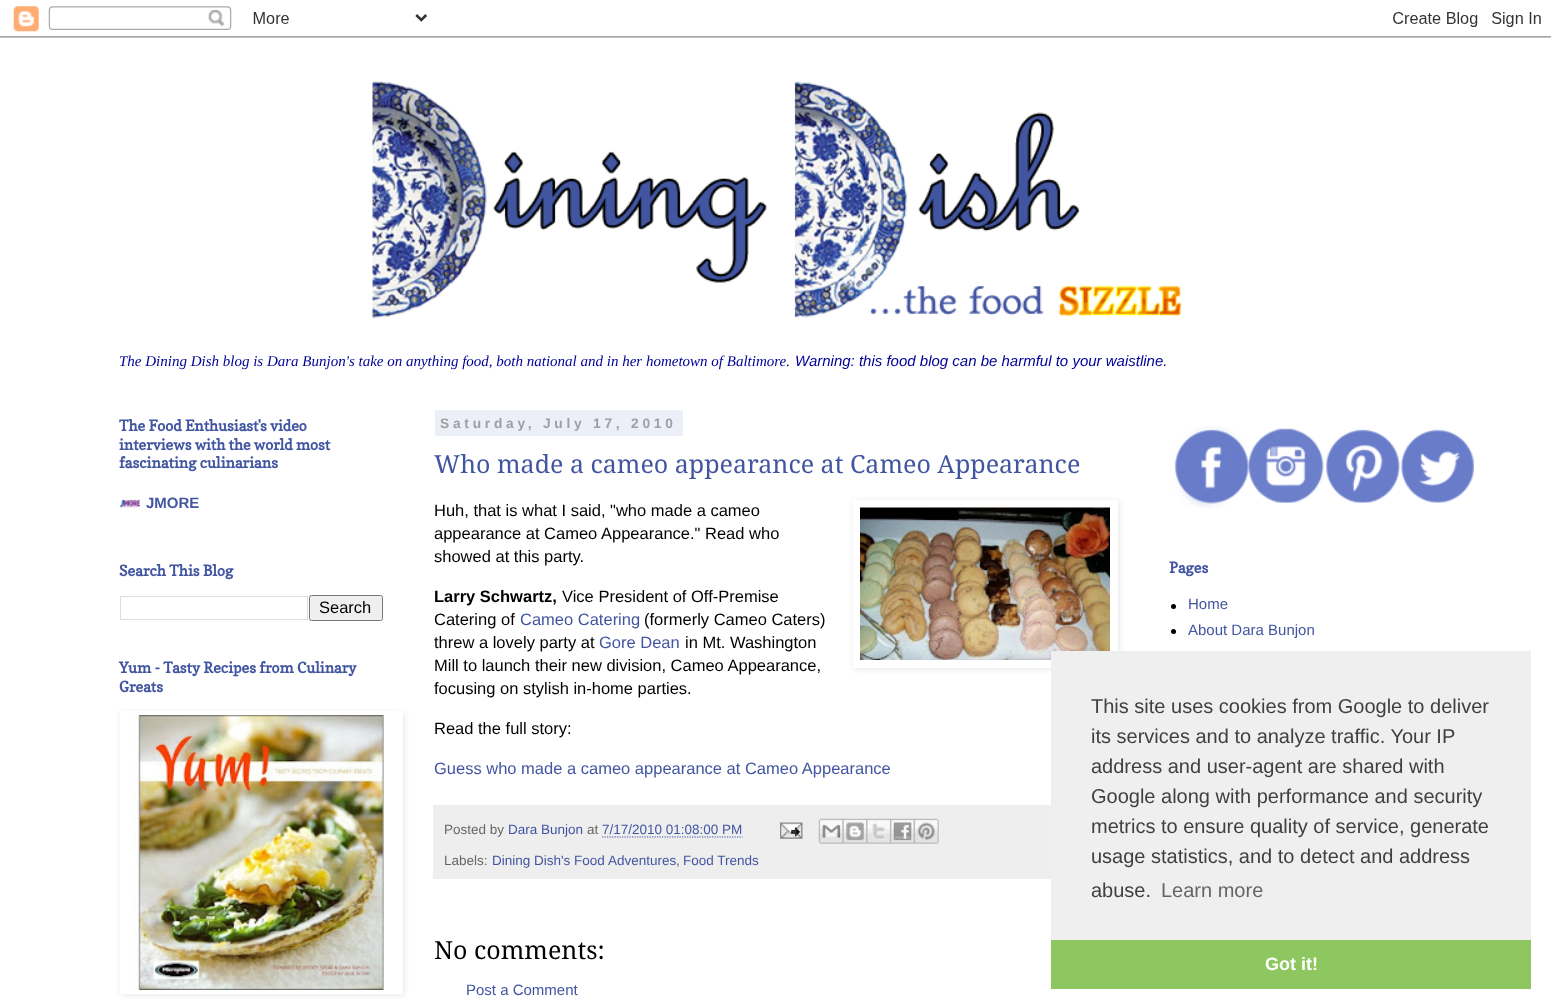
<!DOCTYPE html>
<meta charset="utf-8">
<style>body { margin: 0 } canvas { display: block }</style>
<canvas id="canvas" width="1551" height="1008"></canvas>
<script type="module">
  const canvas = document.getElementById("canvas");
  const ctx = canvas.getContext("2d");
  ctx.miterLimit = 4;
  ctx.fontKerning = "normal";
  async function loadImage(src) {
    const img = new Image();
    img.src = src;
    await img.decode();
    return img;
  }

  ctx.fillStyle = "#ffffff";
  ctx.fillRect(0, 0, 1551, 1008);
  ctx.drawImage(await loadImage("img1.png"), 0, 6, 1551, 32);
  ctx.drawImage(await loadImage("img2.png"), 372, 81, 811, 239);
  ctx.font = "italic 15px Liberation Serif";
  ctx.fillStyle = "#000099";
  ctx.fillText("The Dining Dish blog is Dara Bunjon's take on anything food, both national and in her hometown of Baltimore.", 119, 366);
  ctx.font = "italic 15px Liberation Sans";
  ctx.fillText("Warning: this food blog can be harmful to your waistline.", 795, 366);
  ctx.font = "bold 15px Copse";
  ctx.fillStyle = "#4255a1";
  ctx.fillText("The Food Enthusiast's video", 119, 431);
  ctx.fillText("interviews with the world most", 119, 450);
  ctx.fillText("fascinating culinarians", 119, 468);
  ctx.drawImage(await loadImage("img3.png"), 120, 499, 20, 9);
  ctx.font = "bold 15px Liberation Sans";
  ctx.fillText("JMORE", 146, 508);
  ctx.font = "bold 15px Copse";
  ctx.fillText("Search This Blog", 119, 576);
  ctx.strokeStyle = "#dddddd";
  ctx.strokeRect(120.5, 596.5, 187, 23);
  ctx.fillStyle = "#efefef";
  ctx.beginPath();
  ctx.roundRect(309.5, 595.5, 73, 25, 2);
  ctx.fill();
  ctx.strokeStyle = "#767676";
  ctx.stroke();
  ctx.font = "16.5px Liberation Sans";
  ctx.fillStyle = "#000000";
  ctx.fillText("Search", 319, 613);
  ctx.font = "bold 15px Copse";
  ctx.fillStyle = "#4255a1";
  ctx.fillText("Yum - Tasty Recipes from Culinary", 119, 673);
  ctx.fillText("Greats", 119, 692);
  ctx.save();
  ctx.beginPath();
  ctx.moveTo(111, 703);
  ctx.lineTo(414, 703);
  ctx.lineTo(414, 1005);
  ctx.lineTo(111, 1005);
  ctx.closePath();
  ctx.moveTo(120, 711);
  ctx.lineTo(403, 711);
  ctx.lineTo(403, 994);
  ctx.lineTo(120, 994);
  ctx.closePath();
  ctx.clip("evenodd");
  ctx.fillStyle = "rgba(0, 0, 0, 0.1)";
  ctx.filter = "blur(3px)";
  ctx.beginPath();
  ctx.rect(121, 713, 283, 282);
  ctx.fill();
  ctx.filter = "none";
  ctx.restore();
  ctx.drawImage(await loadImage("img4.png"), 134, 715, 250, 275);
  ctx.fillStyle = "#eceef8";
  ctx.fillRect(435, 410, 248, 26);
  ctx.letterSpacing = "3.75px";
  ctx.font = "bold 13.75px Liberation Sans";
  ctx.fillStyle = "#9e9fa1";
  ctx.fillText("Saturday, July 17, 2010", 440, 428);
  ctx.letterSpacing = "0px";
  ctx.font = "25px Droid Serif";
  ctx.fillStyle = "#4255a1";
  ctx.fillText("Who made a cameo appearance at Cameo Appearance", 434, 473);
  ctx.font = "16.5px Liberation Sans";
  ctx.fillStyle = "#000000";
  ctx.fillText("Huh, that is what I said, \"who made a cameo", 434, 516);
  ctx.save();
  ctx.beginPath();
  ctx.moveTo(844, 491);
  ctx.lineTo(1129, 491);
  ctx.lineTo(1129, 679);
  ctx.lineTo(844, 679);
  ctx.closePath();
  ctx.moveTo(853, 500);
  ctx.lineTo(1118, 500);
  ctx.lineTo(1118, 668);
  ctx.lineTo(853, 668);
  ctx.closePath();
  ctx.clip("evenodd");
  ctx.fillStyle = "rgba(0, 0, 0, 0.1)";
  ctx.filter = "blur(3px)";
  ctx.beginPath();
  ctx.rect(854, 501, 265, 168);
  ctx.fill();
  ctx.filter = "none";
  ctx.restore();
  ctx.drawImage(await loadImage("img5.png"), 860, 507, 250, 153);
  ctx.fillText("appearance at Cameo", 434, 539);
  ctx.fillText("Appearance.\" Read who", 601, 539);
  ctx.fillText("showed at this party.", 434, 562);
  ctx.font = "bold 16.5px Liberation Sans";
  ctx.fillText("Larry Schwartz,", 434, 602);
  ctx.font = "16.5px Liberation Sans";
  ctx.fillText("Vice President of Off-Premise", 562, 602);
  ctx.fillText("Catering of", 434, 625);
  ctx.fillStyle = "#4255a1";
  ctx.fillText("Cameo Catering", 520, 625);
  ctx.fillStyle = "#000000";
  ctx.fillText("(formerly Cameo Caters)", 644, 625);
  ctx.fillText("threw a lovely party at", 434, 648);
  ctx.fillStyle = "#4255a1";
  ctx.fillText("Gore Dean", 599, 648);
  ctx.fillStyle = "#000000";
  ctx.fillText("in Mt. Washington", 685, 648);
  ctx.fillText("Mill to launch their new division, Cameo Appearance,", 434, 671);
  ctx.fillText("focusing on stylish in-home parties.", 434, 694);
  ctx.fillText("Read the full story:", 434, 734);
  ctx.fillStyle = "#4255a1";
  ctx.fillText("Guess who made a cameo appearance at Cameo Appearance", 434, 774);
  ctx.fillStyle = "#eeeeee";
  ctx.fillRect(433, 805, 618, 74);
  ctx.font = "13.5px Liberation Sans";
  ctx.fillStyle = "#666666";
  ctx.fillText("Posted by", 444, 834);
  ctx.fillStyle = "#4255a1";
  ctx.fillText("Dara Bunjon", 508, 834);
  ctx.fillStyle = "#666666";
  ctx.fillText("at", 587, 834);
  ctx.fillStyle = "#4255a1";
  ctx.fillText("7/17/2010 01:08:00 PM", 602, 834);
  ctx.beginPath();
  ctx.moveTo(602, 837);
  ctx.lineTo(742.5, 837);
  ctx.strokeStyle = "#4255a1";
  ctx.lineWidth = 1.2;
  ctx.setLineDash([1.25, 1.25]);
  ctx.stroke();
  ctx.drawImage(await loadImage("img6.png"), 780, 822, 23, 17);
  ctx.drawImage(await loadImage("img7.png"), 818, 818, 26, 26);
  ctx.drawImage(await loadImage("img8.png"), 842, 818, 26, 26);
  ctx.drawImage(await loadImage("img9.png"), 866, 818, 26, 26);
  ctx.drawImage(await loadImage("img10.png"), 890, 818, 25, 26);
  ctx.drawImage(await loadImage("img11.png"), 913, 818, 26, 26);
  ctx.fillStyle = "#666666";
  ctx.fillText("Labels:", 444, 865);
  ctx.fillStyle = "#4255a1";
  ctx.fillText("Dining Dish's Food Adventures", 492, 865);
  ctx.fillStyle = "#666666";
  ctx.fillText(",", 676, 865);
  ctx.fillStyle = "#4255a1";
  ctx.fillText("Food Trends", 683, 865);
  ctx.font = "25px Droid Serif";
  ctx.fillStyle = "#000000";
  ctx.fillText("No comments:", 434, 959);
  ctx.font = "15px Liberation Sans";
  ctx.fillStyle = "#4255a1";
  ctx.fillText("Post a Comment", 466, 995);
  ctx.drawImage(await loadImage("img12.png"), 1174, 426, 300, 83);
  ctx.font = "bold 15px Copse";
  ctx.fillText("Pages", 1169, 573);
  ctx.fillStyle = "#000000";
  ctx.beginPath();
  ctx.arc(1173.5, 606.5, 2.5, 0, Math.PI * 2);
  ctx.fill();
  ctx.font = "15px Liberation Sans";
  ctx.fillStyle = "#4255a1";
  ctx.fillText("Home", 1188, 609);
  ctx.fillStyle = "#000000";
  ctx.beginPath();
  ctx.arc(1173.5, 631.5, 2.5, 0, Math.PI * 2);
  ctx.fill();
  ctx.fillStyle = "#4255a1";
  ctx.fillText("About Dara Bunjon", 1188, 635);
  ctx.fillStyle = "#efefef";
  ctx.fillRect(1051, 651, 480, 289);
  ctx.font = "20px Liberation Sans";
  ctx.fillStyle = "#404040";
  ctx.fillText("This site uses cookies from Google to deliver", 1091, 713);
  ctx.fillText("its services and to analyze traffic. Your IP", 1091, 743);
  ctx.fillText("address and user-agent are shared with", 1091, 773);
  ctx.fillText("Google along with performance and security", 1091, 803);
  ctx.fillText("metrics to ensure quality of service, generate", 1091, 833);
  ctx.fillText("usage statistics, and to detect and address", 1091, 863);
  ctx.fillText("abuse.", 1091, 897);
  ctx.fillStyle = "#666666";
  ctx.fillText("Learn more", 1161, 897);
  ctx.fillStyle = "#8ec760";
  ctx.fillRect(1051, 940, 480, 49);
  ctx.font = "bold 18px Liberation Sans";
  ctx.fillStyle = "#ffffff";
  ctx.fillText("Got it!", 1265, 970);
</script>
